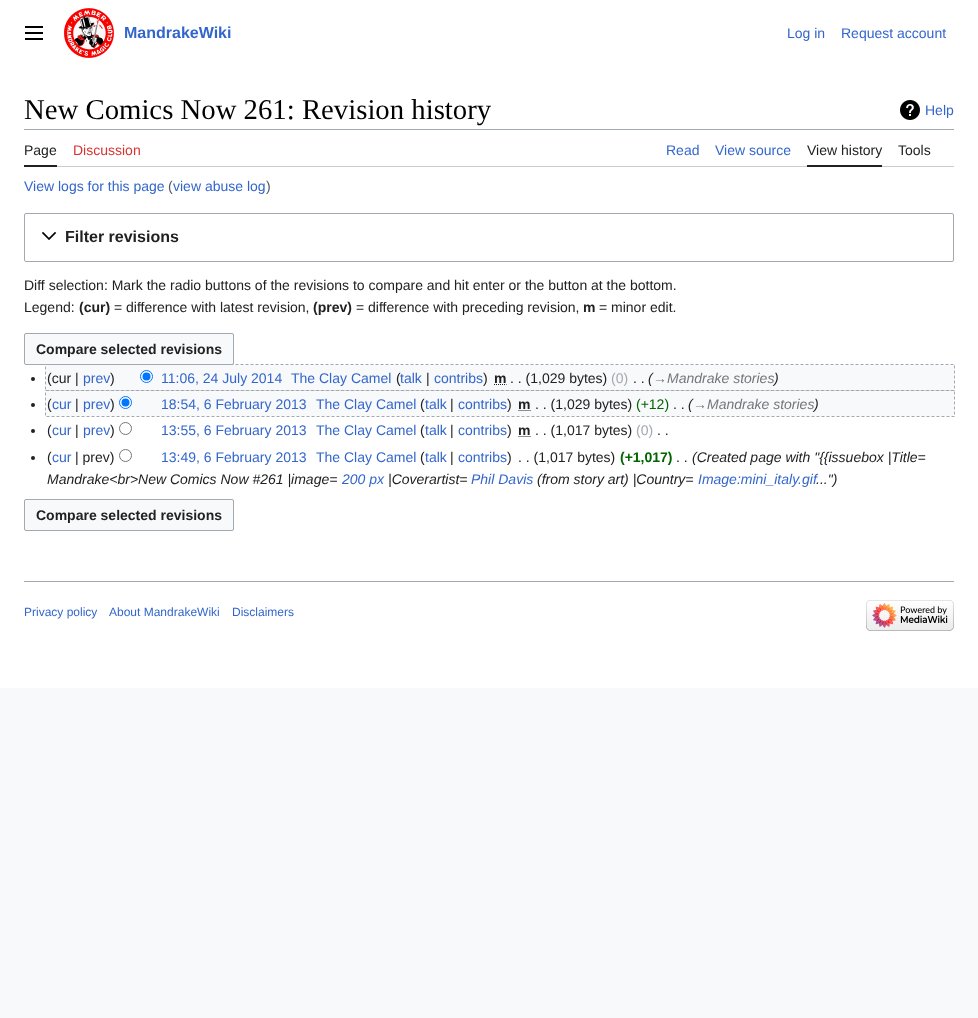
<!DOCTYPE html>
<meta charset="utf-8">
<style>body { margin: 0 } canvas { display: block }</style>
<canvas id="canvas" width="978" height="1018"></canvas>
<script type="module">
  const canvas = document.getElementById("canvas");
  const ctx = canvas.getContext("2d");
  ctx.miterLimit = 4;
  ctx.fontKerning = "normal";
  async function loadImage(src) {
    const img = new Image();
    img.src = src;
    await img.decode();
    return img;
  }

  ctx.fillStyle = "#f8f9fa";
  ctx.fillRect(0, 0, 978, 1018);
  ctx.fillStyle = "#ffffff";
  ctx.fillRect(0, 0, 978, 688);
  ctx.drawImage(await loadImage("img1.png"), 25, 26, 18, 14);
  ctx.drawImage(await loadImage("img2.png"), 64, 8, 50, 50);
  ctx.font = "bold 16px Liberation Sans";
  ctx.fillStyle = "#3366cc";
  ctx.fillText("MandrakeWiki", 124, 38);
  ctx.font = "14px Liberation Sans";
  ctx.fillText("Log in", 787, 38);
  ctx.fillText("Request account", 841, 38);
  ctx.font = "28.75px Liberation Serif";
  ctx.fillStyle = "#000000";
  ctx.fillText("New Comics Now 261: Revision history", 24, 119);
  ctx.drawImage(await loadImage("img3.png"), 900, 100, 20, 20);
  ctx.font = "14px Liberation Sans";
  ctx.fillStyle = "#3366cc";
  ctx.fillText("Help", 925, 115);
  ctx.fillStyle = "#a2a9b1";
  ctx.fillRect(24, 129, 930, 1);
  ctx.fillStyle = "#c8ccd1";
  ctx.fillRect(57, 166, 897, 1);
  ctx.fillStyle = "#202122";
  ctx.fillRect(24, 165, 33, 2);
  ctx.fillText("Page", 24, 155);
  ctx.fillStyle = "#d73333";
  ctx.fillText("Discussion", 73, 155);
  ctx.fillStyle = "#3366cc";
  ctx.fillText("Read", 666, 155);
  ctx.fillText("View source", 715, 155);
  ctx.fillStyle = "#202122";
  ctx.fillRect(807, 165, 75, 2);
  ctx.fillText("View history", 807, 155);
  ctx.fillText("Tools", 898, 155);
  ctx.fillStyle = "#3366cc";
  ctx.fillText("View logs for this page", 24, 191);
  ctx.fillStyle = "#54595d";
  ctx.fillText("(", 168, 191);
  ctx.fillStyle = "#3366cc";
  ctx.fillText("view abuse log", 173, 191);
  ctx.fillStyle = "#54595d";
  ctx.fillText(")", 266, 191);
  ctx.beginPath();
  ctx.roundRect(24.5, 213.5, 929, 48, 1.5);
  ctx.strokeStyle = "#a2a9b1";
  ctx.stroke();
  ctx.drawImage(await loadImage("img4.png"), 42, 232, 15, 8);
  ctx.font = "bold 16px Liberation Sans";
  ctx.fillStyle = "#202122";
  ctx.fillText("Filter revisions", 65, 242);
  ctx.font = "14px Liberation Sans";
  ctx.fillText("Diff selection: Mark the radio buttons of the revisions to compare and hit enter or the button at the bottom.", 24, 290);
  ctx.fillText("Legend:", 24, 312);
  ctx.font = "bold 14px Liberation Sans";
  ctx.fillText("(cur)", 79, 312);
  ctx.font = "14px Liberation Sans";
  ctx.fillText("= difference with latest revision,", 114, 312);
  ctx.font = "bold 14px Liberation Sans";
  ctx.fillText("(prev)", 313, 312);
  ctx.font = "14px Liberation Sans";
  ctx.fillText("= difference with preceding revision,", 356, 312);
  ctx.font = "bold 14px Liberation Sans";
  ctx.fillText("m", 583, 312);
  ctx.font = "14px Liberation Sans";
  ctx.fillText("= minor edit.", 599, 312);
  ctx.fillStyle = "#f8f9fa";
  ctx.fillRect(46, 365, 908, 25);
  ctx.fillStyle = "#202122";
  ctx.fillText("(cur |", 47, 383);
  ctx.fillStyle = "#3366cc";
  ctx.fillText("prev", 83, 383);
  ctx.fillStyle = "#202122";
  ctx.fillText(")", 110, 383);
  ctx.fillStyle = "#ffffff";
  ctx.beginPath();
  ctx.arc(146.5, 376.5, 6, 0, Math.PI * 2);
  ctx.fill();
  ctx.strokeStyle = "#0075ff";
  ctx.stroke();
  ctx.fillStyle = "#0075ff";
  ctx.beginPath();
  ctx.arc(146.5, 376.5, 4, 0, Math.PI * 2);
  ctx.fill();
  ctx.fillStyle = "#3366cc";
  ctx.fillText("11:06, 24 July 2014", 161, 383);
  ctx.fillText("The Clay Camel", 291, 383);
  ctx.fillStyle = "#202122";
  ctx.fillText("(", 396, 383);
  ctx.fillStyle = "#3366cc";
  ctx.fillText("talk", 400, 383);
  ctx.fillStyle = "#202122";
  ctx.fillText("|", 426, 383);
  ctx.fillStyle = "#3366cc";
  ctx.fillText("contribs", 434, 383);
  ctx.fillStyle = "#202122";
  ctx.fillText(")", 483, 383);
  ctx.font = "bold 14px Liberation Sans";
  ctx.fillText("m", 494, 383);
  ctx.beginPath();
  ctx.moveTo(494, 384.5);
  ctx.lineTo(506.5, 384.5);
  ctx.strokeStyle = "#202122";
  ctx.setLineDash([1, 1]);
  ctx.stroke();
  ctx.font = "14px Liberation Sans";
  ctx.fillText(". . (1,029 bytes)", 510, 383);
  ctx.font = "italic 14px Liberation Sans";
  ctx.fillText("(", 648, 383);
  ctx.fillStyle = "#72777d";
  ctx.fillText("→Mandrake stories", 653, 383);
  ctx.fillStyle = "#202122";
  ctx.fillText(")", 774, 383);
  ctx.font = "14px Liberation Sans";
  ctx.fillText(". .", 633, 383);
  ctx.beginPath();
  ctx.moveTo(45.5, 364.5);
  ctx.lineTo(954.5, 364.5);
  ctx.lineTo(954.5, 390.5);
  ctx.lineTo(45.5, 390.5);
  ctx.closePath();
  ctx.strokeStyle = "#a2a9b1";
  ctx.setLineDash([3, 2]);
  ctx.stroke();
  ctx.fillStyle = "#f8f9fa";
  ctx.beginPath();
  ctx.roundRect(24.5, 333.5, 209, 31, 1.5);
  ctx.fill();
  ctx.setLineDash([]);
  ctx.stroke();
  ctx.font = "bold 14px Liberation Sans";
  ctx.fillStyle = "#202122";
  ctx.fillText("Compare selected revisions", 36, 354);
  ctx.beginPath();
  ctx.arc(33, 379, 2, 0, Math.PI * 2);
  ctx.fill();
  ctx.font = "14px Liberation Sans";
  ctx.fillStyle = "#a2a9b1";
  ctx.fillText("(0)", 611, 383);
  ctx.fillStyle = "#f8f9fa";
  ctx.fillRect(46, 391, 908, 25);
  ctx.fillStyle = "#202122";
  ctx.fillText("(", 47, 409);
  ctx.fillStyle = "#3366cc";
  ctx.fillText("cur", 52, 409);
  ctx.fillStyle = "#202122";
  ctx.fillText("|", 75, 409);
  ctx.fillStyle = "#3366cc";
  ctx.fillText("prev", 83, 409);
  ctx.fillStyle = "#202122";
  ctx.fillText(")", 110, 409);
  ctx.fillStyle = "#ffffff";
  ctx.beginPath();
  ctx.arc(125.5, 402.5, 6, 0, Math.PI * 2);
  ctx.fill();
  ctx.strokeStyle = "#0075ff";
  ctx.stroke();
  ctx.fillStyle = "#0075ff";
  ctx.beginPath();
  ctx.arc(125.5, 402.5, 4, 0, Math.PI * 2);
  ctx.fill();
  ctx.fillStyle = "#3366cc";
  ctx.fillText("18:54, 6 February 2013", 161, 409);
  ctx.fillText("The Clay Camel", 316, 409);
  ctx.fillStyle = "#202122";
  ctx.fillText("(", 420, 409);
  ctx.fillStyle = "#3366cc";
  ctx.fillText("talk", 425, 409);
  ctx.fillStyle = "#202122";
  ctx.fillText("|", 450, 409);
  ctx.fillStyle = "#3366cc";
  ctx.fillText("contribs", 458, 409);
  ctx.fillStyle = "#202122";
  ctx.fillText(")", 507, 409);
  ctx.font = "bold 14px Liberation Sans";
  ctx.fillText("m", 518, 409);
  ctx.beginPath();
  ctx.moveTo(518.5, 410.5);
  ctx.lineTo(531, 410.5);
  ctx.strokeStyle = "#202122";
  ctx.setLineDash([1, 1]);
  ctx.stroke();
  ctx.font = "14px Liberation Sans";
  ctx.fillText(". . (1,029 bytes)", 535, 409);
  ctx.fillStyle = "#006400";
  ctx.fillText("(+12)", 636, 409);
  ctx.font = "italic 14px Liberation Sans";
  ctx.fillStyle = "#202122";
  ctx.fillText("(", 688, 409);
  ctx.fillStyle = "#72777d";
  ctx.fillText("→Mandrake stories", 693, 409);
  ctx.fillStyle = "#202122";
  ctx.fillText(")", 814, 409);
  ctx.font = "14px Liberation Sans";
  ctx.fillText(". .", 673, 409);
  ctx.beginPath();
  ctx.moveTo(45.5, 390.5);
  ctx.lineTo(954.5, 390.5);
  ctx.lineTo(954.5, 416.5);
  ctx.lineTo(45.5, 416.5);
  ctx.closePath();
  ctx.strokeStyle = "#a2a9b1";
  ctx.setLineDash([3, 2]);
  ctx.stroke();
  ctx.beginPath();
  ctx.arc(33, 405, 2, 0, Math.PI * 2);
  ctx.fill();
  ctx.beginPath();
  ctx.arc(33, 431, 2, 0, Math.PI * 2);
  ctx.fill();
  ctx.fillText("(", 47, 435);
  ctx.fillStyle = "#3366cc";
  ctx.fillText("cur", 52, 435);
  ctx.fillStyle = "#202122";
  ctx.fillText("|", 75, 435);
  ctx.fillStyle = "#3366cc";
  ctx.fillText("prev", 83, 435);
  ctx.fillStyle = "#202122";
  ctx.fillText(")", 110, 435);
  ctx.beginPath();
  ctx.arc(125.5, 428.5, 6, 0, Math.PI * 2);
  ctx.strokeStyle = "#767676";
  ctx.setLineDash([]);
  ctx.stroke();
  ctx.fillStyle = "#3366cc";
  ctx.fillText("13:55, 6 February 2013", 161, 435);
  ctx.fillText("The Clay Camel", 316, 435);
  ctx.fillStyle = "#202122";
  ctx.fillText("(", 420, 435);
  ctx.fillStyle = "#3366cc";
  ctx.fillText("talk", 425, 435);
  ctx.fillStyle = "#202122";
  ctx.fillText("|", 450, 435);
  ctx.fillStyle = "#3366cc";
  ctx.fillText("contribs", 458, 435);
  ctx.fillStyle = "#202122";
  ctx.fillText(")", 507, 435);
  ctx.font = "bold 14px Liberation Sans";
  ctx.fillText("m", 518, 435);
  ctx.beginPath();
  ctx.moveTo(518.5, 436.5);
  ctx.lineTo(531, 436.5);
  ctx.strokeStyle = "#202122";
  ctx.setLineDash([1, 1]);
  ctx.stroke();
  ctx.font = "14px Liberation Sans";
  ctx.fillText(". . (1,017 bytes)", 535, 435);
  ctx.fillStyle = "#a2a9b1";
  ctx.fillText("(0)", 636, 435);
  ctx.fillStyle = "#202122";
  ctx.fillText(". .", 657, 435);
  ctx.beginPath();
  ctx.arc(33, 458, 2, 0, Math.PI * 2);
  ctx.fill();
  ctx.fillText("(", 47, 462);
  ctx.fillStyle = "#3366cc";
  ctx.fillText("cur", 52, 462);
  ctx.fillStyle = "#202122";
  ctx.fillText("| prev)", 75, 462);
  ctx.beginPath();
  ctx.arc(125.5, 455.5, 6, 0, Math.PI * 2);
  ctx.strokeStyle = "#767676";
  ctx.setLineDash([]);
  ctx.stroke();
  ctx.fillStyle = "#3366cc";
  ctx.fillText("13:49, 6 February 2013", 161, 462);
  ctx.fillText("The Clay Camel", 316, 462);
  ctx.fillStyle = "#202122";
  ctx.fillText("(", 420, 462);
  ctx.fillStyle = "#3366cc";
  ctx.fillText("talk", 425, 462);
  ctx.fillStyle = "#202122";
  ctx.fillText("|", 450, 462);
  ctx.fillStyle = "#3366cc";
  ctx.fillText("contribs", 458, 462);
  ctx.fillStyle = "#202122";
  ctx.fillText(")", 507, 462);
  ctx.fillText(". . (1,017 bytes)", 518, 462);
  ctx.font = "bold 14px Liberation Sans";
  ctx.fillStyle = "#006400";
  ctx.fillText("(+1,017)", 620, 462);
  ctx.font = "italic 14px Liberation Sans";
  ctx.fillStyle = "#202122";
  ctx.fillText("(Created page with \"{{issuebox |Title=", 692, 462);
  ctx.font = "14px Liberation Sans";
  ctx.fillText(". .", 676, 462);
  ctx.font = "italic 14px Liberation Sans";
  ctx.fillText("Mandrake<br>New Comics Now #261 |image=", 47, 484);
  ctx.fillStyle = "#3366cc";
  ctx.fillText("200 px", 342, 484);
  ctx.fillStyle = "#202122";
  ctx.fillText("|Coverartist=", 388, 484);
  ctx.fillStyle = "#3366cc";
  ctx.fillText("Phil Davis", 471, 484);
  ctx.fillStyle = "#202122";
  ctx.fillText("(from story art) |Country=", 537, 484);
  ctx.fillStyle = "#3366cc";
  ctx.fillText("Image:mini_italy.gif", 698, 484);
  ctx.fillStyle = "#202122";
  ctx.fillText("...\")", 816, 484);
  ctx.fillStyle = "#f8f9fa";
  ctx.beginPath();
  ctx.roundRect(24.5, 499.5, 209, 31, 1.5);
  ctx.fill();
  ctx.strokeStyle = "#a2a9b1";
  ctx.stroke();
  ctx.font = "bold 14px Liberation Sans";
  ctx.fillStyle = "#202122";
  ctx.fillText("Compare selected revisions", 36, 520);
  ctx.fillStyle = "#a2a9b1";
  ctx.fillRect(24, 581, 930, 1);
  ctx.font = "12px Liberation Sans";
  ctx.fillStyle = "#3366cc";
  ctx.fillText("Privacy policy", 24, 616);
  ctx.fillText("About MandrakeWiki", 109, 616);
  ctx.fillText("Disclaimers", 232, 616);
  ctx.drawImage(await loadImage("img5.png"), 866, 600, 88, 31);
</script>
